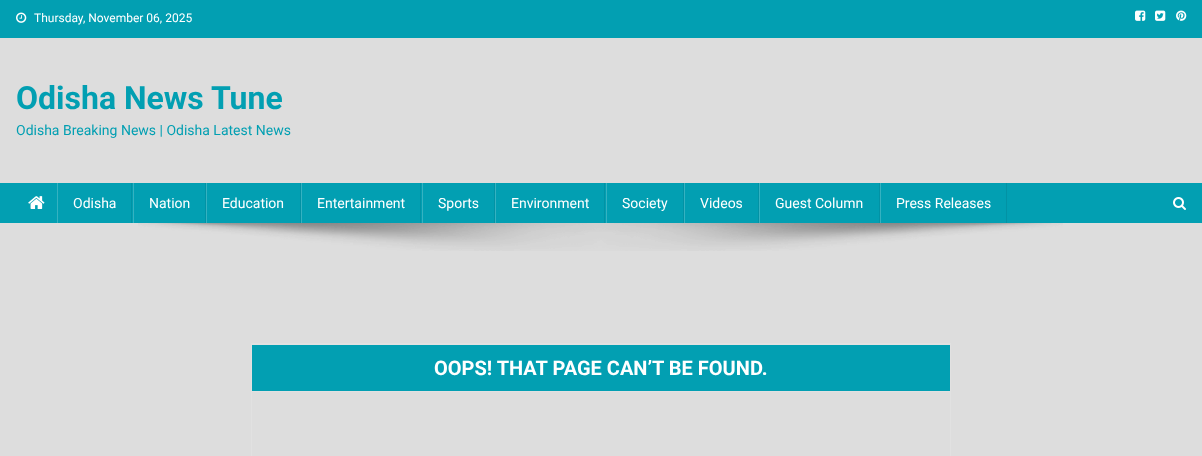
<!DOCTYPE html>
<meta charset="utf-8">
<style>body { margin: 0 } canvas { display: block }</style>
<canvas id="canvas" width="1202" height="456"></canvas>
<script type="module">
  const canvas = document.getElementById("canvas");
  const ctx = canvas.getContext("2d");
  ctx.miterLimit = 4;
  ctx.fontKerning = "normal";
  async function loadImage(src) {
    const img = new Image();
    img.src = src;
    await img.decode();
    return img;
  }

  ctx.fillStyle = "#dddddd";
  ctx.fillRect(0, 0, 1202, 456);
  ctx.fillStyle = "#029fb2";
  ctx.fillRect(0, 0, 1202, 38);
  ctx.drawImage(await loadImage("img1.png"), 16, 12, 11, 11);
  ctx.font = "12px Roboto";
  ctx.fillStyle = "#ffffff";
  ctx.fillText("Thursday, November 06, 2025", 34, 22);
  ctx.drawImage(await loadImage("img2.png"), 1135, 10, 11, 11);
  ctx.drawImage(await loadImage("img3.png"), 1155, 10, 11, 11);
  ctx.drawImage(await loadImage("img4.png"), 1176, 10, 11, 11);
  ctx.font = "bold 32px Roboto";
  ctx.fillStyle = "#029fb2";
  ctx.fillText("Odisha News Tune", 16, 109);
  ctx.font = "14px Roboto";
  ctx.fillText("Odisha Breaking News | Odisha Latest News", 16, 135);
  ctx.fillRect(0, 183, 1202, 40);
  ctx.drawImage(await loadImage("img5.png"), 28, 196, 17, 13);
  ctx.fillStyle = "#0292a4";
  ctx.fillRect(131, 183, 1, 40);
  ctx.fillStyle = "#35b2c1";
  ctx.fillRect(57, 183, 1, 40);
  ctx.fillStyle = "#ffffff";
  ctx.fillText("Odisha", 73, 208);
  ctx.fillStyle = "#0292a4";
  ctx.fillRect(205, 183, 1, 40);
  ctx.fillStyle = "#35b2c1";
  ctx.fillRect(133, 183, 1, 40);
  ctx.fillStyle = "#ffffff";
  ctx.fillText("Nation", 149, 208);
  ctx.fillStyle = "#0292a4";
  ctx.fillRect(300, 183, 1, 40);
  ctx.fillStyle = "#35b2c1";
  ctx.fillRect(206, 183, 1, 40);
  ctx.fillStyle = "#ffffff";
  ctx.fillText("Education", 222, 208);
  ctx.fillStyle = "#0292a4";
  ctx.fillRect(420, 183, 1, 40);
  ctx.fillStyle = "#35b2c1";
  ctx.fillRect(301, 183, 1, 40);
  ctx.fillStyle = "#ffffff";
  ctx.fillText("Entertainment", 317, 208);
  ctx.fillStyle = "#0292a4";
  ctx.fillRect(494, 183, 1, 40);
  ctx.fillStyle = "#35b2c1";
  ctx.fillRect(422, 183, 1, 40);
  ctx.fillStyle = "#ffffff";
  ctx.fillText("Sports", 438, 208);
  ctx.fillStyle = "#0292a4";
  ctx.fillRect(604, 183, 1, 40);
  ctx.fillStyle = "#35b2c1";
  ctx.fillRect(495, 183, 1, 40);
  ctx.fillStyle = "#ffffff";
  ctx.fillText("Environment", 511, 208);
  ctx.fillStyle = "#0292a4";
  ctx.fillRect(683, 183, 1, 40);
  ctx.fillStyle = "#35b2c1";
  ctx.fillRect(606, 183, 1, 40);
  ctx.fillStyle = "#ffffff";
  ctx.fillText("Society", 622, 208);
  ctx.fillStyle = "#0292a4";
  ctx.fillRect(758, 183, 1, 40);
  ctx.fillStyle = "#35b2c1";
  ctx.fillRect(684, 183, 1, 40);
  ctx.fillStyle = "#ffffff";
  ctx.fillText("Videos", 700, 208);
  ctx.fillStyle = "#0292a4";
  ctx.fillRect(879, 183, 1, 40);
  ctx.fillStyle = "#35b2c1";
  ctx.fillRect(759, 183, 1, 40);
  ctx.fillStyle = "#ffffff";
  ctx.fillText("Guest Column", 775, 208);
  ctx.fillStyle = "#0292a4";
  ctx.fillRect(1006, 183, 1, 40);
  ctx.fillStyle = "#35b2c1";
  ctx.fillRect(880, 183, 1, 40);
  ctx.fillStyle = "#ffffff";
  ctx.fillText("Press Releases", 896, 208);
  ctx.drawImage(await loadImage("img6.png"), 1173, 197, 13, 13);
  ctx.drawImage(await loadImage("img7.png"), 138, 223, 925, 28);
  ctx.strokeStyle = "#e1e1e1";
  ctx.strokeRect(251.5, 343.5, 699, 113);
  ctx.fillStyle = "#029fb2";
  ctx.fillRect(252, 345, 698, 46);
  ctx.fillStyle = "#e1e1e1";
  ctx.fillRect(252, 344, 698, 1);
  ctx.fillRect(252, 391, 698, 1);
  ctx.font = "bold 20px Roboto";
  ctx.fillStyle = "#ffffff";
  ctx.fillText("OOPS! THAT PAGE CAN’T BE FOUND.", 434, 375);
</script>
